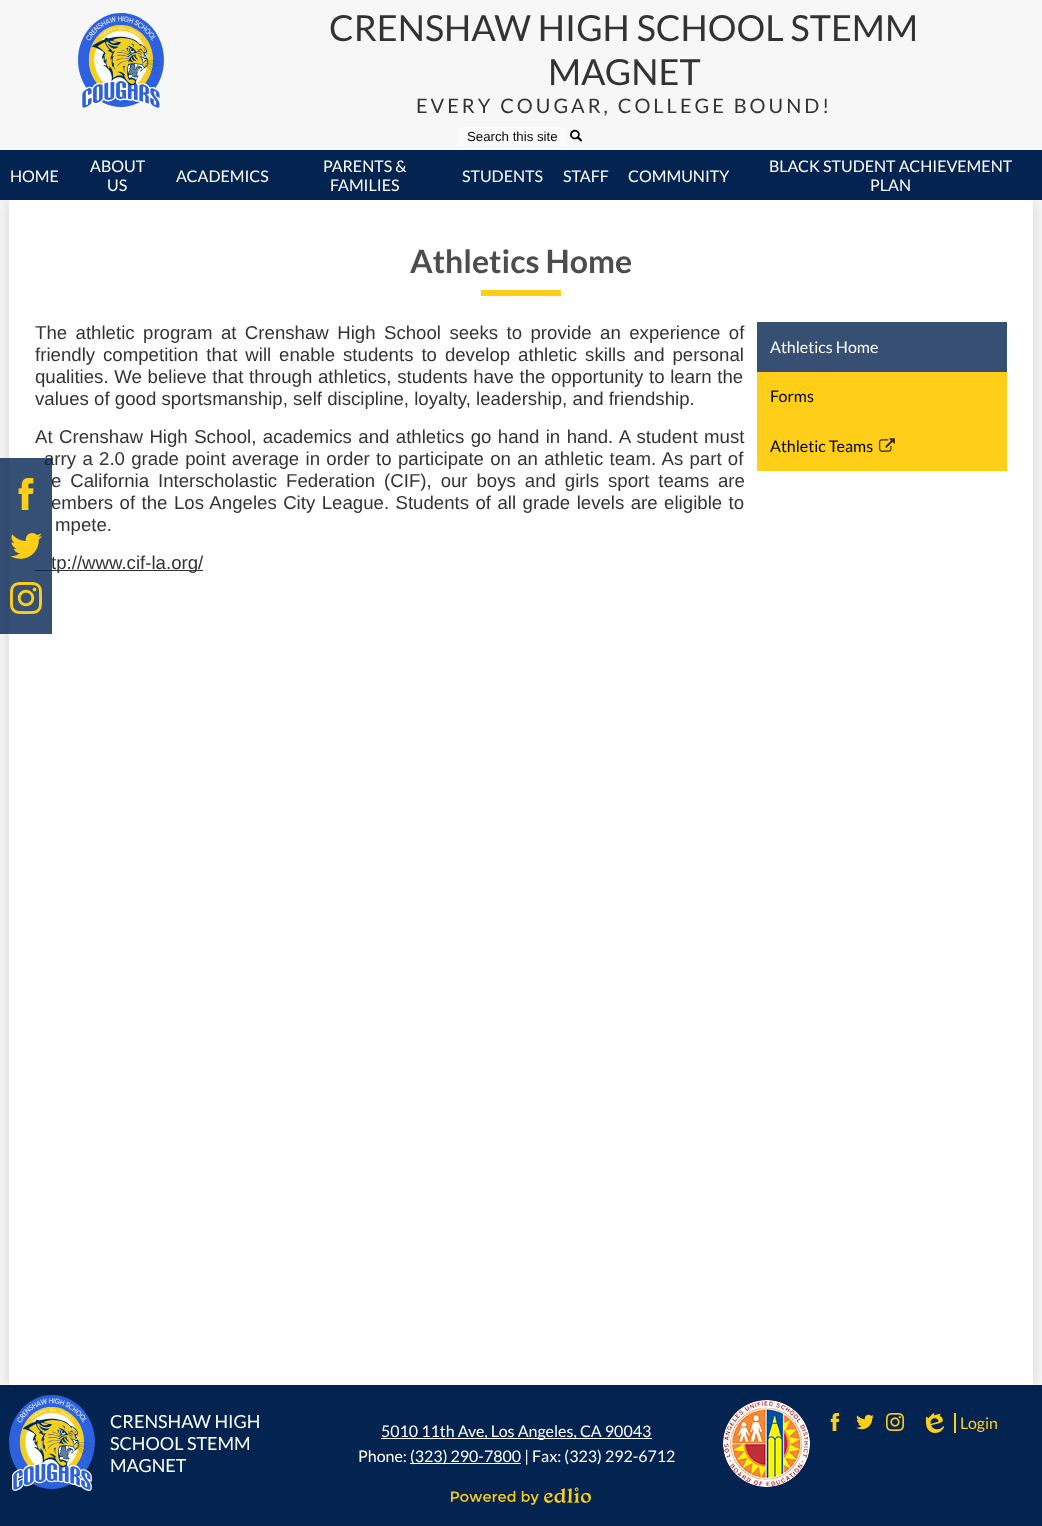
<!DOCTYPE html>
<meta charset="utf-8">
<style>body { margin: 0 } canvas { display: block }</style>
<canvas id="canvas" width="1042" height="1526"></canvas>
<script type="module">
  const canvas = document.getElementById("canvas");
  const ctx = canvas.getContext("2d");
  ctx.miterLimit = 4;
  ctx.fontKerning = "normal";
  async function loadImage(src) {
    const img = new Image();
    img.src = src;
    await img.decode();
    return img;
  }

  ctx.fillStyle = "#f7f7f7";
  ctx.fillRect(0, 0, 1042, 1526);
  ctx.drawImage(await loadImage("img1.png"), 78, 13, 86, 96);
  ctx.font = "36px Lato";
  ctx.fillStyle = "#333333";
  ctx.fillText("CRENSHAW HIGH SCHOOL STEMM", 329, 41);
  ctx.fillText("MAGNET", 548, 85);
  ctx.letterSpacing = "3px";
  ctx.font = "20px Lato";
  ctx.fillText("EVERY COUGAR, COLLEGE BOUND!", 416, 113);
  ctx.fillStyle = "#fbfbfb";
  ctx.beginPath();
  ctx.roundRect(457, 127, 110, 18, 5);
  ctx.fill();
  ctx.letterSpacing = "0px";
  ctx.font = "13.25px Liberation Sans";
  ctx.fillStyle = "#000000";
  ctx.fillText("Search this site", 467, 141);
  ctx.drawImage(await loadImage("img2.png"), 569, 129, 13, 13);
  ctx.fillStyle = "#032451";
  ctx.fillRect(0, 1385, 1042, 141);
  ctx.drawImage(await loadImage("img7.png"), 9, 1395, 86, 96);
  ctx.drawImage(await loadImage("img8.png"), 723, 1400, 87, 87);
  ctx.fillStyle = "rgba(0, 0, 0, 0.15)";
  ctx.filter = "blur(7.5px)";
  ctx.beginPath();
  ctx.rect(9, 200, 1024, 1185);
  ctx.fill();
  ctx.filter = "none";
  ctx.fillStyle = "#032451";
  ctx.fillRect(0, 150, 1042, 50);
  ctx.font = "16px Lato";
  ctx.fillStyle = "#ffffff";
  ctx.fillText("HOME", 10, 182);
  ctx.fillText("ABOUT", 90, 172);
  ctx.fillText("US", 107, 191);
  ctx.fillText("ACADEMICS", 176, 182);
  ctx.fillText("PARENTS &", 323, 172);
  ctx.fillText("FAMILIES", 330, 191);
  ctx.fillText("STUDENTS", 462, 182);
  ctx.fillText("STAFF", 563, 182);
  ctx.fillText("COMMUNITY", 628, 182);
  ctx.fillText("BLACK STUDENT ACHIEVEMENT", 769, 172);
  ctx.fillText("PLAN", 870, 191);
  ctx.fillRect(9, 200, 1024, 1185);
  ctx.wordSpacing = "1.1px";
  ctx.font = "18.65px Liberation Sans";
  ctx.fillStyle = "#333333";
  ctx.fillText("arry a 2.0 grade point average in order to participate on an athletic team. As part of", 44, 465);
  ctx.wordSpacing = "3.75px";
  ctx.fillText("e California Interscholastic Federation (CIF), our boys and girls sport teams are", 51, 487);
  ctx.wordSpacing = "1.25px";
  ctx.fillText("embers of the Los Angeles City League. Students of all grade levels are eligible to", 51, 509);
  ctx.fillRect(35, 570, 168, 1);
  ctx.wordSpacing = "0px";
  ctx.fillText("tp://www.cif-la.org/", 51, 569);
  ctx.fillStyle = "rgba(3, 36, 81, 0.8)";
  ctx.fillRect(0, 458, 52, 176);
  ctx.drawImage(await loadImage("img3.png"), 18, 478, 16, 32);
  ctx.drawImage(await loadImage("img4.png"), 10, 533, 32, 26);
  ctx.drawImage(await loadImage("img5.png"), 10, 582, 32, 32);
  ctx.font = "bold 32px Lato";
  ctx.fillStyle = "#4d4d4d";
  ctx.fillText("Athletics Home", 410, 273);
  ctx.fillStyle = "#ffce17";
  ctx.fillRect(481, 290, 80, 6);
  ctx.wordSpacing = "3.25px";
  ctx.font = "18.65px Liberation Sans";
  ctx.fillStyle = "#333333";
  ctx.fillText("The athletic program at Crenshaw High School seeks to provide an experience of", 35, 339);
  ctx.wordSpacing = "2.75px";
  ctx.fillText("friendly competition that will enable students to develop athletic skills and personal", 35, 361);
  ctx.wordSpacing = "0.5px";
  ctx.fillText("qualities. We believe that through athletics, students have the opportunity to learn the", 35, 383);
  ctx.wordSpacing = "0px";
  ctx.fillText("values of good sportsmanship, self discipline, loyalty, leadership, and friendship.", 35, 405);
  ctx.wordSpacing = "1.25px";
  ctx.fillText("At Crenshaw High School, academics and athletics go hand in hand. A student must", 35, 443);
  ctx.wordSpacing = "0px";
  ctx.fillText("mpete.", 55, 531);
  ctx.fillStyle = "#fece18";
  ctx.fillRect(757, 372, 250, 99);
  ctx.fillStyle = "#384f74";
  ctx.fillRect(757, 322, 250, 50);
  ctx.font = "16px Lato";
  ctx.fillStyle = "#ffffff";
  ctx.fillText("Athletics Home", 770, 353);
  ctx.fillStyle = "#000000";
  ctx.fillText("Forms", 770, 402);
  ctx.fillText("Athletic Teams", 770, 452);
  ctx.drawImage(await loadImage("img6.png"), 879, 438, 16, 14);
  ctx.font = "18px Lato";
  ctx.fillStyle = "#ffffff";
  ctx.fillText("CRENSHAW HIGH", 110, 1428);
  ctx.fillText("SCHOOL STEMM", 110, 1450);
  ctx.fillText("MAGNET", 110, 1472);
  ctx.fillRect(381, 1438, 271, 1);
  ctx.font = "16px Lato";
  ctx.fillText("5010 11th Ave, Los Angeles, CA 90043", 381, 1437);
  ctx.fillText("Phone:", 358, 1462);
  ctx.fillRect(410, 1463, 111, 1);
  ctx.fillText("(323) 290-7800 | Fax: (323) 292-6712", 410, 1462);
  ctx.drawImage(await loadImage("img9.png"), 830, 1413, 10, 18);
  ctx.drawImage(await loadImage("img10.png"), 856, 1414, 18, 16);
  ctx.drawImage(await loadImage("img11.png"), 886, 1413, 18, 18);
  ctx.fillStyle = "#ffce17";
  ctx.fillRect(954, 1413, 2, 20);
  ctx.drawImage(await loadImage("img12.png"), 925, 1413, 20, 20);
  ctx.fillText("Login", 960, 1429);
  ctx.drawImage(await loadImage("img13.png"), 451, 1487, 140, 18);
</script>
